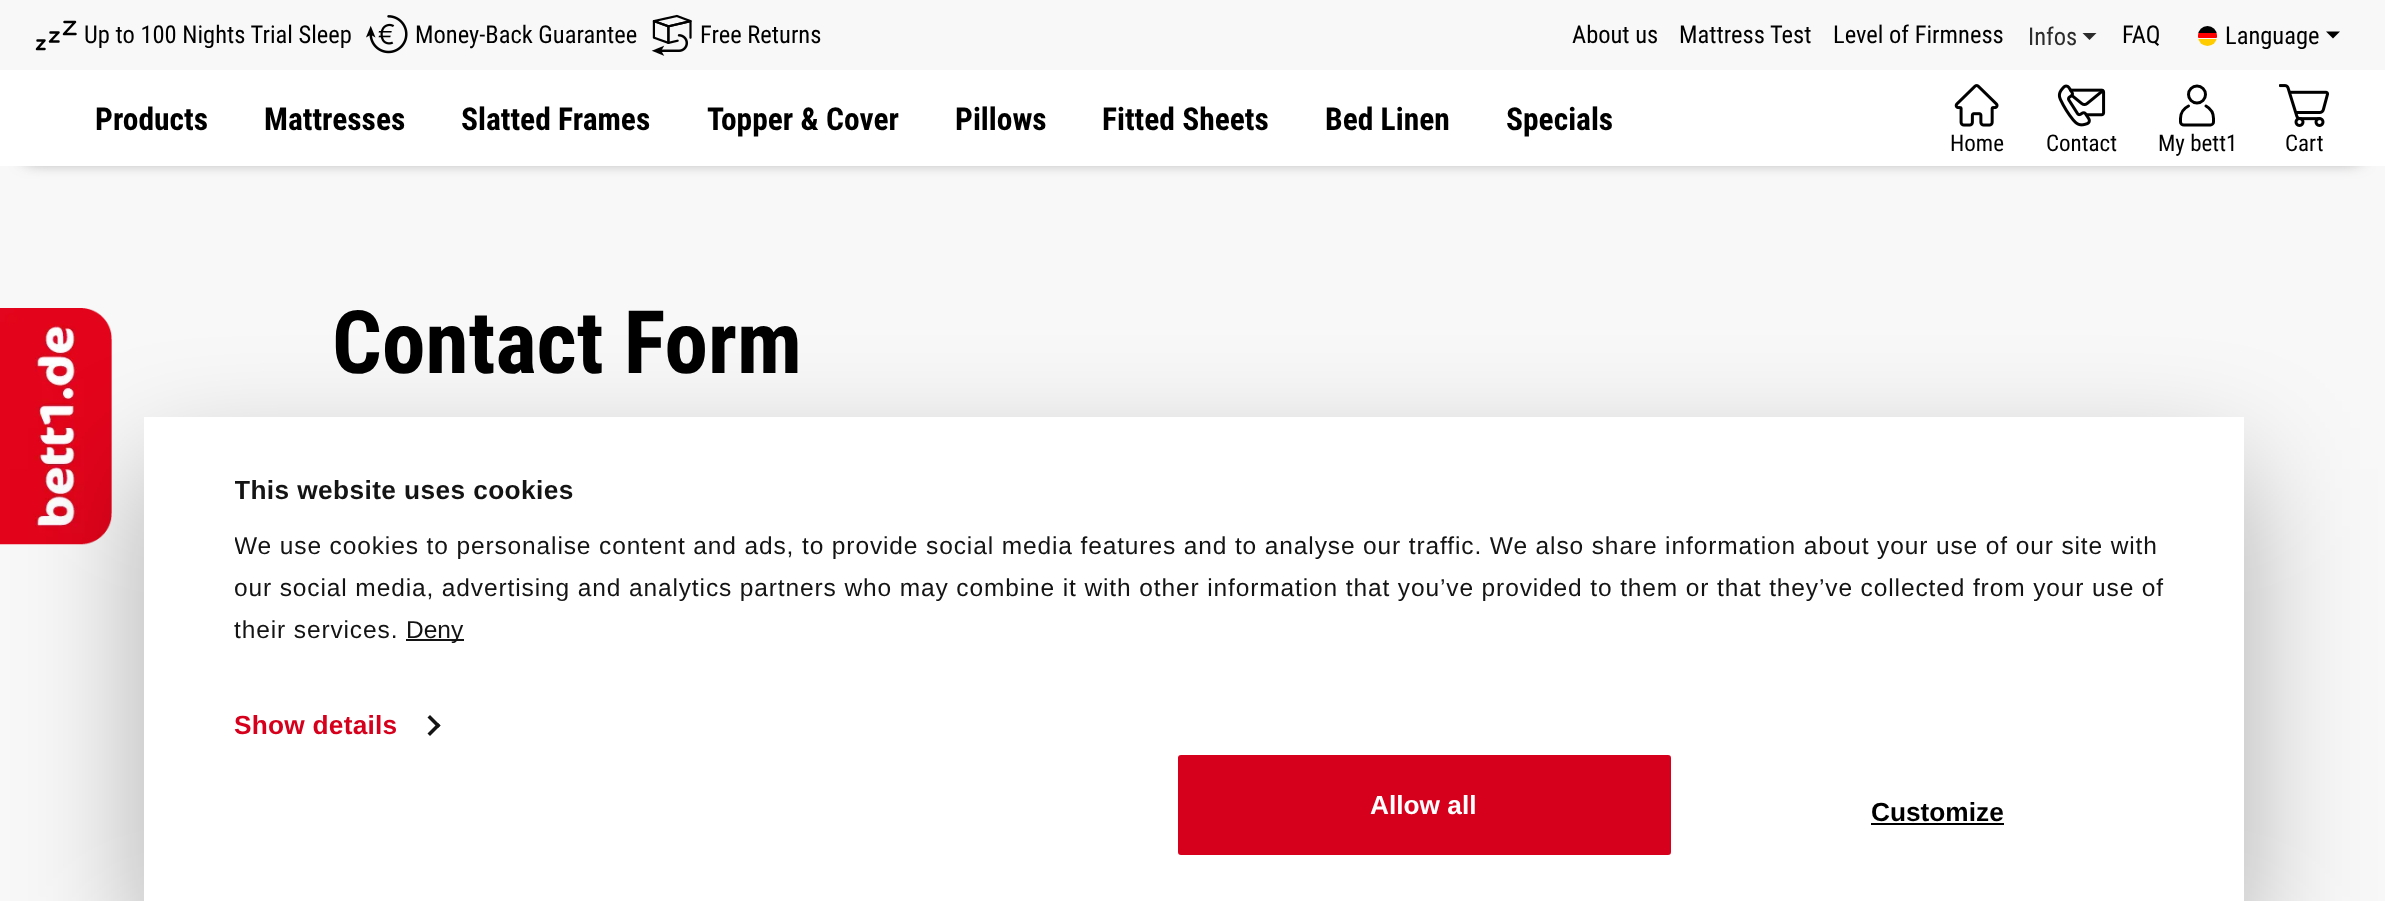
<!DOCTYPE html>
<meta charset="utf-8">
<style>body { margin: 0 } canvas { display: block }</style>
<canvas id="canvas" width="2385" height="901"></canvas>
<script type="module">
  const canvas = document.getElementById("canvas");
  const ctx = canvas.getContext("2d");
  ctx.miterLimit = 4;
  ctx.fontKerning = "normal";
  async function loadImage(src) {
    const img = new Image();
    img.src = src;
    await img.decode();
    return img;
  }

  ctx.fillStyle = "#f8f8f8";
  ctx.fillRect(0, 0, 2385, 901);
  ctx.beginPath();
  ctx.moveTo(64.5, 22);
  ctx.lineTo(75, 22);
  ctx.lineTo(64, 34);
  ctx.lineTo(75.5, 34);
  ctx.moveTo(50.5, 32.5);
  ctx.lineTo(58.5, 32.5);
  ctx.lineTo(50, 41.5);
  ctx.lineTo(58.5, 41.5);
  ctx.moveTo(37.5, 40.5);
  ctx.lineTo(44.5, 40.5);
  ctx.lineTo(37, 49);
  ctx.lineTo(44.5, 49);
  ctx.strokeStyle = "#000000";
  ctx.lineWidth = 2.5;
  ctx.lineCap = "round";
  ctx.lineJoin = "round";
  ctx.stroke();
  ctx.font = "24.5px Roboto Condensed";
  ctx.fillStyle = "#000000";
  ctx.fillText("Up to 100 Nights Trial Sleep", 84, 43);
  ctx.drawImage(await loadImage("img1.png"), 366, 15, 42, 39);
  ctx.fillText("Money-Back Guarantee", 415, 43);
  ctx.drawImage(await loadImage("img2.png"), 651, 14, 41, 42);
  ctx.fillText("Free Returns", 700, 43);
  ctx.fillText("About us", 1572, 43);
  ctx.fillText("Mattress Test", 1679, 43);
  ctx.fillText("Level of Firmness", 1833, 43);
  ctx.fillStyle = "#2c2c2c";
  ctx.fillText("Infos", 2028, 45);
  ctx.beginPath();
  ctx.moveTo(2082.5, 33);
  ctx.lineTo(2096.5, 33);
  ctx.lineTo(2089.5, 40);
  ctx.closePath();
  ctx.fill();
  ctx.fillStyle = "#000000";
  ctx.fillText("FAQ", 2122, 43);
  ctx.save();
  ctx.beginPath();
  ctx.roundRect(2198, 26, 19, 20, 9.5);
  ctx.clip();
  ctx.fillRect(2198, 26, 19, 7);
  ctx.fillStyle = "#ff0000";
  ctx.fillRect(2198, 33, 19, 5);
  ctx.fillStyle = "#ffcc00";
  ctx.fillRect(2198, 39, 19, 7);
  ctx.restore();
  ctx.fillText("Language", 2225, 44);
  ctx.beginPath();
  ctx.moveTo(2326, 31.5);
  ctx.lineTo(2340, 31.5);
  ctx.lineTo(2333, 38.5);
  ctx.closePath();
  ctx.fill();
  ctx.fillStyle = "#575756";
  ctx.filter = "blur(9px)";
  ctx.beginPath();
  ctx.rect(26, 114, 2333, 44);
  ctx.fill();
  ctx.filter = "none";
  ctx.fillStyle = "#ffffff";
  ctx.fillRect(0, 70, 2385, 96);
  ctx.font = "bold 31.5px Roboto Condensed";
  ctx.fillStyle = "#000000";
  ctx.fillText("Products", 95, 130);
  ctx.fillText("Mattresses", 264, 130);
  ctx.fillText("Slatted Frames", 461, 130);
  ctx.fillText("Topper & Cover", 707, 130);
  ctx.fillText("Pillows", 955, 130);
  ctx.fillText("Fitted Sheets", 1102, 130);
  ctx.fillText("Bed Linen", 1325, 130);
  ctx.fillText("Specials", 1506, 130);
  ctx.drawImage(await loadImage("img3.png"), 1954, 84, 45, 43);
  ctx.font = "23px Roboto Condensed";
  ctx.fillText("Home", 1950, 151);
  ctx.drawImage(await loadImage("img4.png"), 2057, 84, 49, 43);
  ctx.fillText("Contact", 2046, 151);
  ctx.beginPath();
  ctx.arc(2197, 94.5, 8.5, 0, Math.PI * 2);
  ctx.lineWidth = 3;
  ctx.stroke();
  ctx.beginPath();
  ctx.moveTo(2206, 106);
  ctx.bezierCurveTo(2210.5, 108.5, 2213.5, 113, 2213.5, 118.5);
  ctx.lineTo(2213.5, 122);
  ctx.bezierCurveTo(2213.5, 123.5, 2212, 125, 2210.5, 125);
  ctx.lineTo(2184, 125);
  ctx.bezierCurveTo(2182, 125, 2180.5, 123.5, 2180.5, 122);
  ctx.lineTo(2180.5, 118.5);
  ctx.bezierCurveTo(2180.5, 113, 2183.5, 108.5, 2188.5, 106);
  ctx.stroke();
  ctx.fillText("My bett1", 2158, 151);
  ctx.drawImage(await loadImage("img5.png"), 2279, 84, 50, 43);
  ctx.fillText("Cart", 2285, 151);
  ctx.drawImage(await loadImage("img6.png"), 0, 308, 112, 237);
  ctx.font = "bold 87.5px Roboto Condensed";
  ctx.fillText("Contact Form", 332, 373);
  ctx.fillStyle = "rgba(0, 0, 0, 0.3)";
  ctx.filter = "blur(61px)";
  ctx.beginPath();
  ctx.rect(144, 469, 2100, 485);
  ctx.fill();
  ctx.filter = "none";
  ctx.fillStyle = "#ffffff";
  ctx.fillRect(144, 417, 2100, 484);
  ctx.save();
  ctx.beginPath();
  ctx.rect(235, 469, 1995, 180);
  ctx.clip();
  ctx.letterSpacing = "0.4px";
  ctx.font = "bold 26.25px Liberation Sans";
  ctx.fillStyle = "#141414";
  ctx.fillText("This website uses cookies", 234, 499);
  ctx.letterSpacing = "0.88px";
  ctx.font = "24.5px Liberation Sans";
  ctx.fillText("We use cookies to personalise content and ads, to provide social media features and to analyse our traffic. We also share information about your use of our site with", 234, 554);
  ctx.fillText("our social media, advertising and analytics partners who may combine it with other information that you’ve provided to them or that they’ve collected from your use of", 234, 596);
  ctx.restore();
  ctx.letterSpacing = "0.88px";
  ctx.font = "24.5px Liberation Sans";
  ctx.fillStyle = "#141414";
  ctx.fillText("their services.", 234, 638);
  ctx.fillRect(406, 639, 58, 2);
  ctx.letterSpacing = "0px";
  ctx.fillText("Deny", 406, 638);
  ctx.letterSpacing = "0.25px";
  ctx.font = "bold 26.25px Liberation Sans";
  ctx.fillStyle = "#d6001c";
  ctx.fillText("Show details", 234, 734);
  ctx.fillStyle = "#141414";
  ctx.beginPath();
  ctx.moveTo(430, 715);
  ctx.lineTo(440.5, 725.5);
  ctx.lineTo(438, 728);
  ctx.lineTo(427.5, 717.5);
  ctx.closePath();
  ctx.fill();
  ctx.beginPath();
  ctx.moveTo(438, 723);
  ctx.lineTo(440.5, 725.5);
  ctx.lineTo(430, 736);
  ctx.lineTo(427.5, 733.5);
  ctx.closePath();
  ctx.fill();
  ctx.fillStyle = "#d6001c";
  ctx.beginPath();
  ctx.roundRect(1176, 753, 497, 104, 5);
  ctx.fill();
  ctx.strokeStyle = "#ffffff";
  ctx.lineWidth = 4;
  ctx.lineJoin = "miter";
  ctx.stroke();
  ctx.letterSpacing = "0px";
  ctx.fillStyle = "#ffffff";
  ctx.fillText("Allow all", 1370, 814);
  ctx.fillStyle = "#000000";
  ctx.fillText("Customize", 1871, 821);
  ctx.fillRect(1871, 823, 133, 2);
</script>
